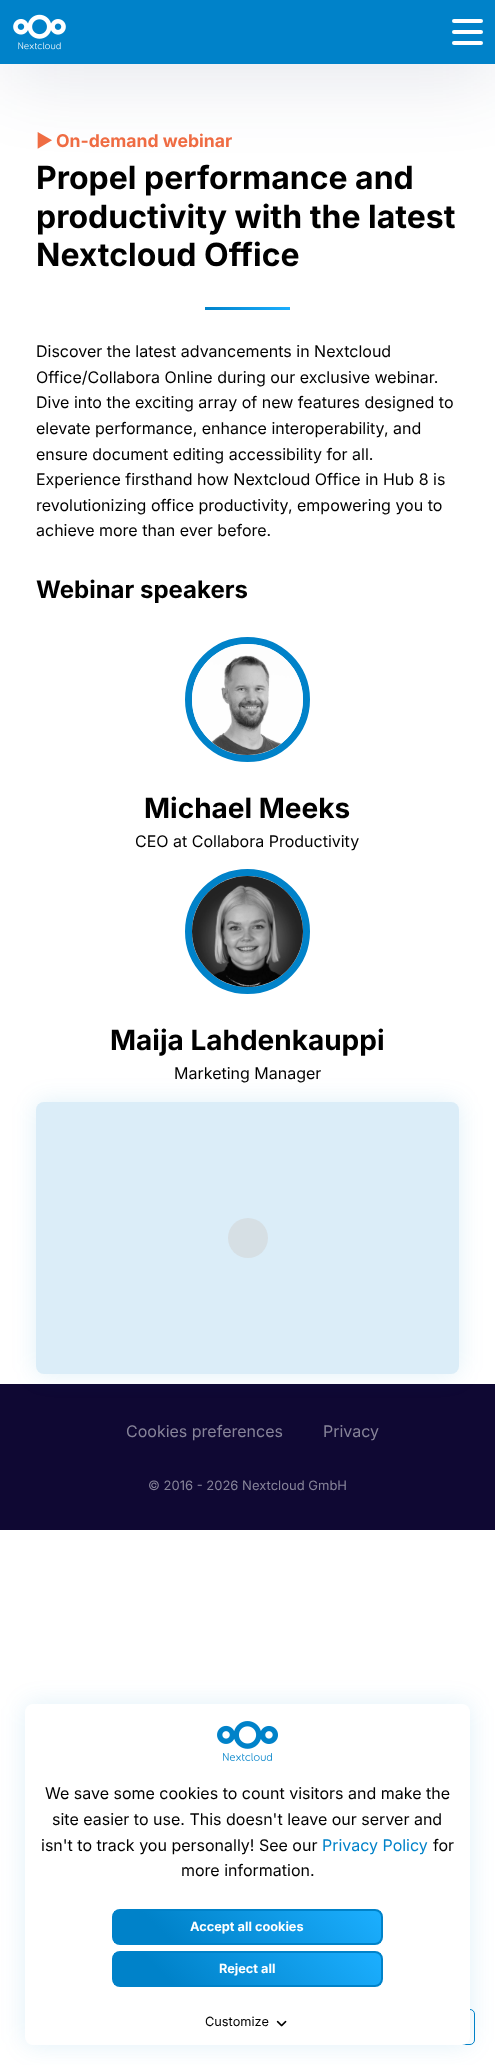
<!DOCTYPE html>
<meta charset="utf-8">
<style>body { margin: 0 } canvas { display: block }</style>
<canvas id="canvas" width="495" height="2065"></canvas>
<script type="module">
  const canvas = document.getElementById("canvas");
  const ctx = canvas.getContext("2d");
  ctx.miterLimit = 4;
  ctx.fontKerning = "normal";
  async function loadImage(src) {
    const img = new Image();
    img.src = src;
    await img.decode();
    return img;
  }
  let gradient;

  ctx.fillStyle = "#ffffff";
  ctx.fillRect(0, 0, 495, 2065);
  ctx.fillStyle = "rgba(29, 43, 91, 0.14)";
  ctx.filter = "blur(40px)";
  ctx.beginPath();
  ctx.rect(4, 9, 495, 64);
  ctx.fill();
  ctx.filter = "none";
  ctx.fillStyle = "#0082c9";
  ctx.fillRect(0, 0, 495, 64);
  ctx.drawImage(await loadImage("img1.png"), 13, 14, 53, 36);
  ctx.fillStyle = "#ffffff";
  ctx.beginPath();
  ctx.roundRect(452, 19, 31, 4, 2);
  ctx.fill();
  ctx.beginPath();
  ctx.roundRect(452, 30, 31, 4, 2);
  ctx.fill();
  ctx.beginPath();
  ctx.roundRect(452, 41, 31, 4, 2);
  ctx.fill();
  ctx.font = "bold 17.6px Inter";
  ctx.fillStyle = "#ef6c43";
  ctx.fillText("▶", 36, 147);
  ctx.font = "bold 17.6px 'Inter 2'";
  ctx.fillText("On-demand webinar", 56, 147);
  ctx.font = "bold 32px 'Inter 2'";
  ctx.fillStyle = "#000000";
  ctx.fillText("Propel performance and", 36, 189);
  ctx.fillText("productivity with the latest", 36, 228);
  ctx.fillText("Nextcloud Office", 36, 266);
  gradient = ctx.createLinearGradient(226, 331, 270, 287);
  gradient.addColorStop(0, "#0082c9");
  gradient.addColorStop(1, "#1cafff");
  ctx.fillStyle = gradient;
  ctx.fillRect(205, 307, 85, 3);
  ctx.font = "16px Inter";
  ctx.fillStyle = "#000000";
  ctx.fillText("Discover the latest advancements in Nextcloud", 36, 357);
  ctx.fillText("Office/Collabora Online during our exclusive webinar.", 36, 383);
  ctx.fillText("Dive into the exciting array of new features designed to", 36, 408);
  ctx.fillText("elevate performance, enhance interoperability, and", 36, 434);
  ctx.fillText("ensure document editing accessibility for all.", 36, 460);
  ctx.fillText("Experience firsthand how Nextcloud Office in Hub 8 is", 36, 485);
  ctx.fillText("revolutionizing office productivity, empowering you to", 36, 511);
  ctx.fillText("achieve more than ever before.", 36, 536);
  ctx.font = "bold 24px 'Inter 2'";
  ctx.fillText("Webinar speakers", 36, 598);
  ctx.beginPath();
  ctx.arc(247.5, 699.5, 59, 0, Math.PI * 2);
  ctx.strokeStyle = "#0082c9";
  ctx.lineWidth = 7;
  ctx.stroke();
  ctx.drawImage(await loadImage("img2.png"), 192, 644, 111, 111);
  ctx.font = "bold 28px 'Inter 2'";
  ctx.fillText("Michael Meeks", 144, 818);
  ctx.font = "16px Inter";
  ctx.fillText("CEO at Collabora Productivity", 135, 847);
  ctx.beginPath();
  ctx.arc(247.5, 931.5, 59, 0, Math.PI * 2);
  ctx.stroke();
  ctx.drawImage(await loadImage("img3.png"), 192, 876, 111, 111);
  ctx.font = "bold 28px 'Inter 2'";
  ctx.fillText("Maija Lahdenkauppi", 110, 1050);
  ctx.font = "16px Inter";
  ctx.fillText("Marketing Manager", 174, 1079);
  ctx.fillStyle = "#0f0833";
  ctx.fillRect(0, 1384, 495, 146);
  ctx.fillStyle = "rgba(0, 130, 201, 0.12)";
  ctx.filter = "blur(12.5px)";
  ctx.beginPath();
  ctx.roundRect(36, 1102, 423, 272, 8);
  ctx.fill();
  ctx.filter = "none";
  ctx.fillStyle = "#dbedf8";
  ctx.beginPath();
  ctx.roundRect(36, 1102, 423, 272, 8);
  ctx.fill();
  ctx.fillStyle = "#d6dfe4";
  ctx.beginPath();
  ctx.arc(248, 1238, 20, 0, Math.PI * 2);
  ctx.fill();
  ctx.fillStyle = "#878499";
  ctx.fillText("Cookies preferences", 126, 1437);
  ctx.fillText("Privacy", 323, 1437);
  ctx.font = "13px Inter";
  ctx.fillText("© 2016 - 2026 Nextcloud GmbH", 148, 1490);
  ctx.beginPath();
  ctx.roundRect(443.5, 2009.5, 31, 35, 4.5);
  ctx.lineWidth = 1;
  ctx.stroke();
  ctx.fillStyle = "rgba(0, 130, 201, 0.12)";
  ctx.filter = "blur(12.5px)";
  ctx.beginPath();
  ctx.roundRect(25, 1704, 445, 341, 8);
  ctx.fill();
  ctx.filter = "none";
  ctx.fillStyle = "#ffffff";
  ctx.beginPath();
  ctx.roundRect(25, 1704, 445, 341, 8);
  ctx.fill();
  ctx.drawImage(await loadImage("img4.png"), 217, 1721, 61, 40);
  ctx.font = "16px Inter";
  ctx.fillStyle = "#000000";
  ctx.fillText("We save some cookies to count visitors and make the", 45, 1799);
  ctx.fillText("site easier to use. This doesn't leave our server and", 52, 1825);
  ctx.fillText("isn't to track you personally! See our", 41, 1851);
  ctx.fillStyle = "#0082c9";
  ctx.fillText("Privacy Policy", 322, 1851);
  ctx.fillStyle = "#000000";
  ctx.fillText("for", 433, 1851);
  ctx.fillText("more information.", 181, 1876);
  ctx.save();
  ctx.beginPath();
  ctx.roundRect(112, 1909, 271, 36, 8);
  ctx.clip();
  gradient = ctx.createLinearGradient(173, 2002, 322, 1852);
  gradient.addColorStop(0.2, "#0082c9");
  gradient.addColorStop(1, "#1cafff");
  ctx.fillStyle = gradient;
  ctx.fillRect(114, 1911, 267, 32);
  ctx.restore();
  ctx.beginPath();
  ctx.roundRect(113, 1910, 269, 34, 7);
  ctx.lineWidth = 2;
  ctx.stroke();
  ctx.font = "bold 12.75px 'Inter 2'";
  ctx.fillStyle = "#ffffff";
  ctx.fillText("Accept all cookies", 190, 1931);
  ctx.save();
  ctx.beginPath();
  ctx.roundRect(112, 1951, 271, 36, 8);
  ctx.clip();
  gradient = ctx.createLinearGradient(173, 2044, 322, 1894);
  gradient.addColorStop(0.2, "#0082c9");
  gradient.addColorStop(1, "#1cafff");
  ctx.fillStyle = gradient;
  ctx.fillRect(114, 1953, 267, 32);
  ctx.restore();
  ctx.beginPath();
  ctx.roundRect(113, 1952, 269, 34, 7);
  ctx.stroke();
  ctx.fillText("Reject all", 219, 1973);
  ctx.font = "12.75px Inter";
  ctx.fillStyle = "#000000";
  ctx.fillText("Customize", 205, 2026);
  ctx.drawImage(await loadImage("img5.png"), 276, 2020, 11, 7);
</script>
